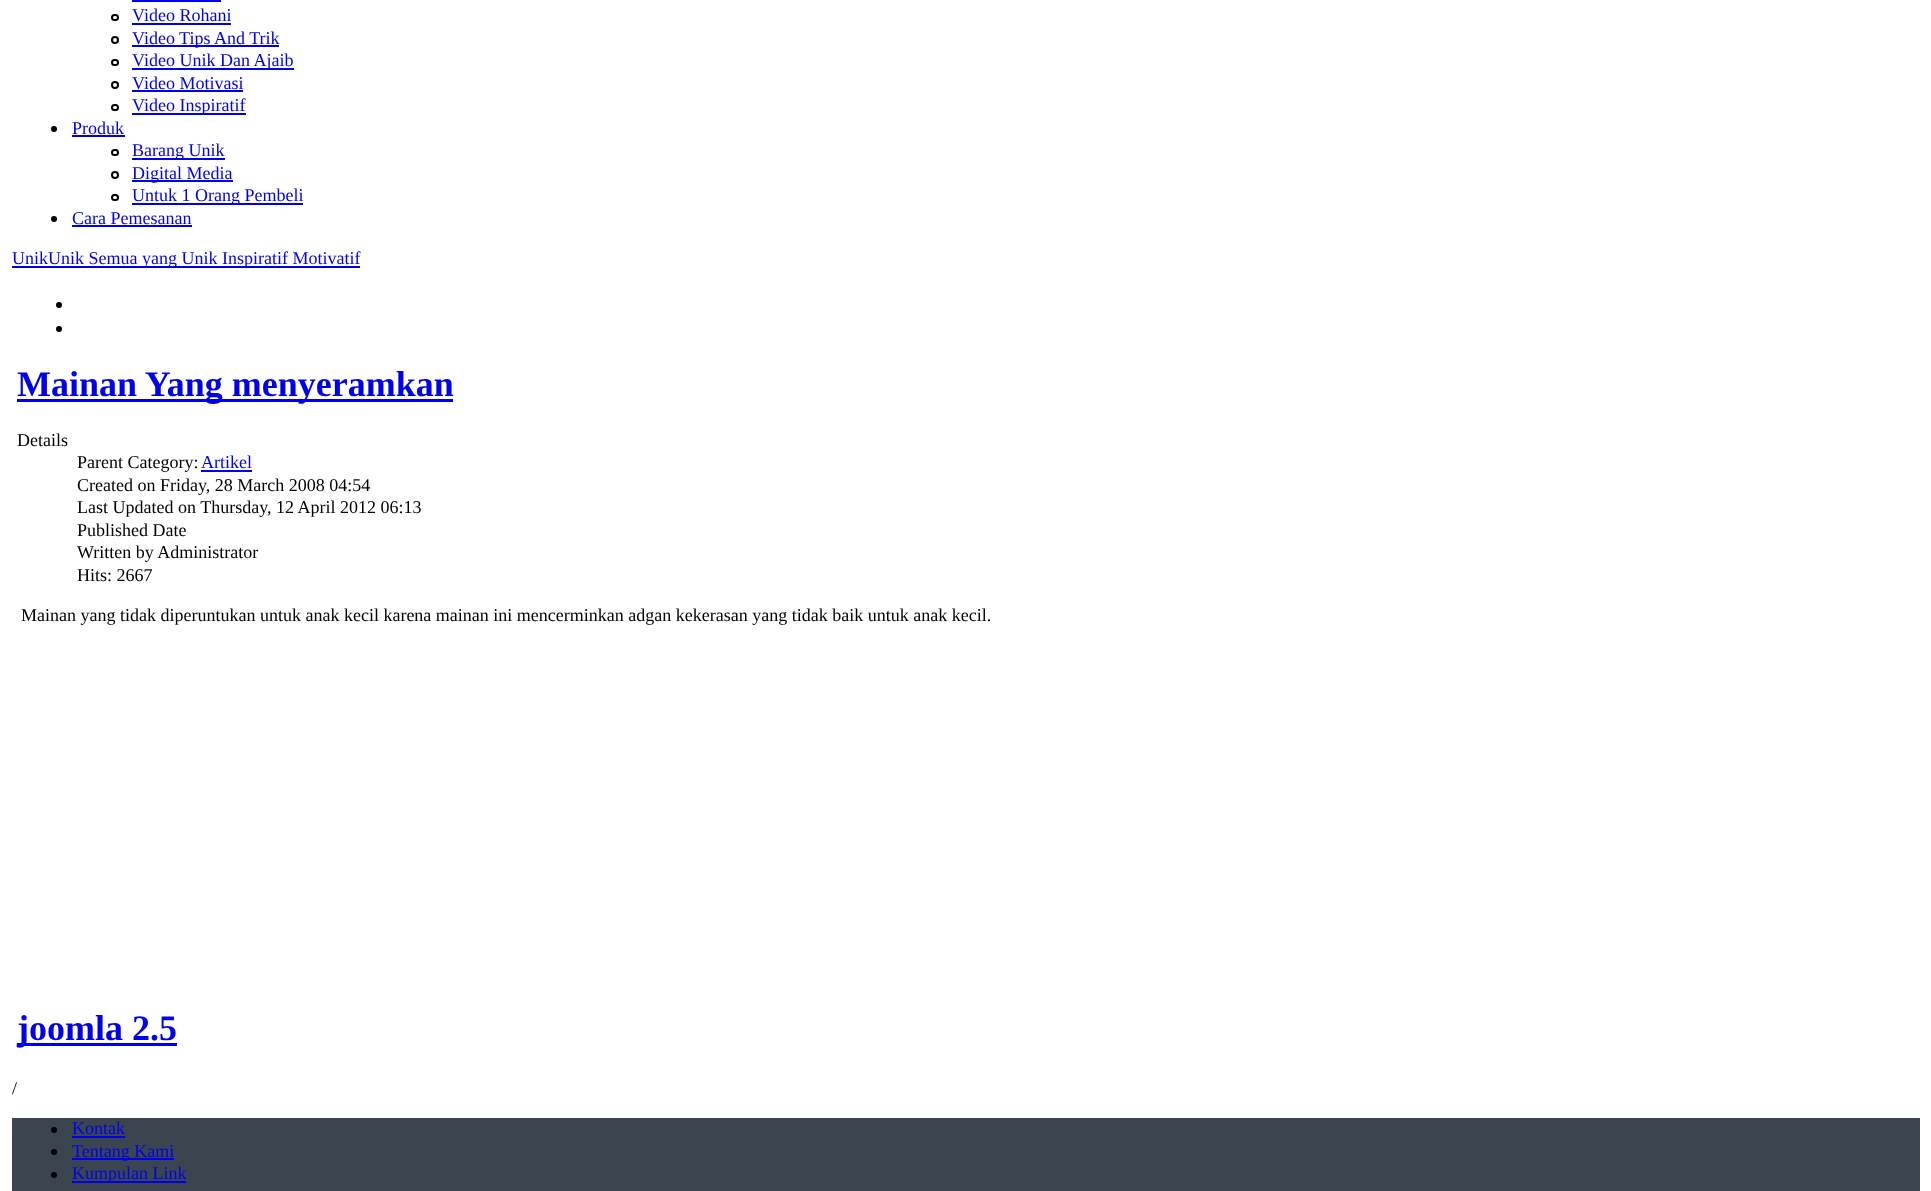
<!DOCTYPE html>
<meta charset="utf-8">
<style>body { margin: 0 } canvas { display: block }</style>
<canvas id="canvas" width="1931" height="1191"></canvas>
<script type="module">
  const canvas = document.getElementById("canvas");
  const ctx = canvas.getContext("2d");
  ctx.miterLimit = 4;
  ctx.fontKerning = "normal";

  ctx.fillStyle = "#ffffff";
  ctx.fillRect(0, 0, 1931, 1191);
  ctx.fillStyle = "#0000ee";
  ctx.fillRect(132, 0, 89, 2);
  ctx.beginPath();
  ctx.roundRect(112, 15, 6, 5, 2.5);
  ctx.strokeStyle = "#000000";
  ctx.lineWidth = 2;
  ctx.stroke();
  ctx.font = "18px Liberation Serif";
  ctx.fillText("Video Rohani", 132, 21);
  ctx.fillRect(132, 23, 99, 2);
  ctx.beginPath();
  ctx.arc(115, 40, 3, 0, Math.PI * 2);
  ctx.stroke();
  ctx.fillRect(132, 45, 147, 2);
  ctx.fillText("Video Tips And Trik", 132, 44);
  ctx.beginPath();
  ctx.roundRect(112, 60, 6, 5, 2.5);
  ctx.stroke();
  ctx.fillRect(132, 68, 162, 2);
  ctx.fillText("Video Unik Dan Ajaib", 132, 66);
  ctx.beginPath();
  ctx.arc(115, 85, 3, 0, Math.PI * 2);
  ctx.stroke();
  ctx.fillText("Video Motivasi", 132, 89);
  ctx.fillRect(132, 90, 111, 2);
  ctx.beginPath();
  ctx.roundRect(112, 105, 6, 5, 2.5);
  ctx.stroke();
  ctx.fillRect(132, 113, 114, 2);
  ctx.fillText("Video Inspiratif", 132, 111);
  ctx.fillStyle = "#000000";
  ctx.beginPath();
  ctx.arc(54, 129, 3, 0, Math.PI * 2);
  ctx.fill();
  ctx.fillStyle = "#0000ee";
  ctx.fillText("Produk", 72, 134);
  ctx.fillRect(72, 135, 53, 2);
  ctx.beginPath();
  ctx.roundRect(112, 150, 6, 5, 2.5);
  ctx.stroke();
  ctx.fillRect(132, 158, 93, 2);
  ctx.fillText("Barang Unik", 132, 156);
  ctx.beginPath();
  ctx.arc(115, 175, 3, 0, Math.PI * 2);
  ctx.stroke();
  ctx.fillRect(132, 180, 101, 2);
  ctx.fillText("Digital Media", 132, 179);
  ctx.beginPath();
  ctx.roundRect(112, 195, 6, 5, 2.5);
  ctx.stroke();
  ctx.fillRect(132, 203, 171, 2);
  ctx.fillText("Untuk 1 Orang Pembeli", 132, 201);
  ctx.fillStyle = "#000000";
  ctx.beginPath();
  ctx.arc(54, 219, 3, 0, Math.PI * 2);
  ctx.fill();
  ctx.fillStyle = "#0000ee";
  ctx.fillText("Cara Pemesanan", 72, 224);
  ctx.fillRect(72, 225, 120, 2);
  ctx.fillRect(12, 266, 348, 2);
  ctx.fillText("UnikUnik Semua yang Unik Inspiratif Motivatif", 12, 264);
  ctx.fillStyle = "#000000";
  ctx.beginPath();
  ctx.arc(59, 305, 3, 0, Math.PI * 2);
  ctx.fill();
  ctx.beginPath();
  ctx.arc(59, 329, 3, 0, Math.PI * 2);
  ctx.fill();
  ctx.fillStyle = "#0000ee";
  ctx.fillRect(17, 399, 436, 3);
  ctx.font = "bold 36px Liberation Serif";
  ctx.fillText("Mainan Yang menyeramkan", 17, 396);
  ctx.font = "18px Liberation Serif";
  ctx.fillStyle = "#000000";
  ctx.fillText("Details", 17, 446);
  ctx.fillText("Parent Category:", 77, 468);
  ctx.fillStyle = "#0000ee";
  ctx.fillText("Artikel", 201, 468);
  ctx.fillRect(201, 470, 51, 2);
  ctx.fillStyle = "#000000";
  ctx.fillText("Created on Friday, 28 March 2008 04:54", 77, 491);
  ctx.fillText("Last Updated on Thursday, 12 April 2012 06:13", 77, 513);
  ctx.fillText("Published Date", 77, 536);
  ctx.fillText("Written by Administrator", 77, 558);
  ctx.fillText("Hits: 2667", 77, 581);
  ctx.fillText("Mainan yang tidak diperuntukan untuk anak kecil karena mainan ini mencerminkan adgan kekerasan yang tidak baik untuk anak kecil.", 21, 621);
  ctx.fillStyle = "#0000ee";
  ctx.fillRect(17, 1043, 160, 3);
  ctx.font = "bold 36px Liberation Serif";
  ctx.fillText("joomla 2.5", 17, 1040);
  ctx.font = "18px Liberation Serif";
  ctx.fillStyle = "#000000";
  ctx.fillText("/", 12, 1094);
  ctx.fillStyle = "#3b454f";
  ctx.fillRect(12, 1118, 1908, 73);
  ctx.fillStyle = "#000000";
  ctx.beginPath();
  ctx.arc(54, 1130, 3, 0, Math.PI * 2);
  ctx.fill();
  ctx.fillStyle = "#0000ee";
  ctx.fillText("Kontak", 72, 1134);
  ctx.fillRect(72, 1136, 53, 2);
  ctx.fillStyle = "#000000";
  ctx.beginPath();
  ctx.arc(54, 1152, 3, 0, Math.PI * 2);
  ctx.fill();
  ctx.fillStyle = "#0000ee";
  ctx.fillRect(72, 1158, 102, 2);
  ctx.fillText("Tentang Kami", 72, 1157);
  ctx.fillStyle = "#000000";
  ctx.beginPath();
  ctx.arc(54, 1175, 3, 0, Math.PI * 2);
  ctx.fill();
  ctx.fillStyle = "#0000ee";
  ctx.fillRect(72, 1181, 114, 2);
  ctx.fillText("Kumpulan Link", 72, 1179);
</script>
